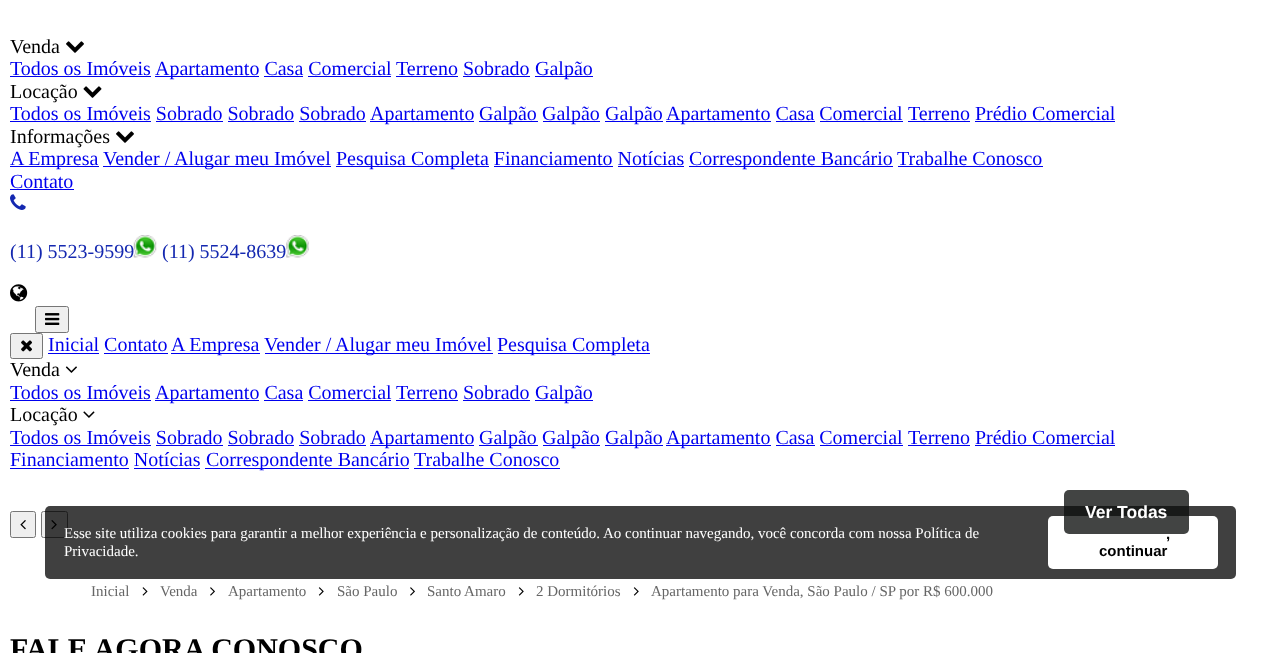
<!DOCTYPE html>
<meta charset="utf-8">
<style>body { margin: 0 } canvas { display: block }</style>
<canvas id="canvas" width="1282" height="653"></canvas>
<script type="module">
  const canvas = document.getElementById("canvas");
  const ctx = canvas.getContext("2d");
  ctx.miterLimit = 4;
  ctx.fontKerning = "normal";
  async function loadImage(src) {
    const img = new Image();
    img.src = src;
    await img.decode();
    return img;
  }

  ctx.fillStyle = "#ffffff";
  ctx.fillRect(0, 0, 1282, 653);
  ctx.font = "20px Liberation Serif";
  ctx.fillStyle = "#000000";
  ctx.fillText("Venda", 10, 53);
  ctx.drawImage(await loadImage("img1.png"), 66, 41, 18, 12);
  ctx.fillStyle = "#0000ee";
  ctx.fillText("Todos os Imóveis", 10, 75);
  ctx.fillRect(10, 76, 141, 1);
  ctx.fillRect(155, 76, 104, 1);
  ctx.fillText("Apartamento Casa Comercial", 155, 75);
  ctx.fillText("Terreno Sobrado", 396, 75);
  ctx.fillRect(396, 76, 62, 1);
  ctx.fillRect(535, 76, 58, 1);
  ctx.fillText("Galpão", 535, 75);
  ctx.fillRect(264, 76, 39, 1);
  ctx.fillRect(308, 76, 83, 1);
  ctx.fillRect(463, 76, 67, 1);
  ctx.fillStyle = "#000000";
  ctx.fillText("Locação", 10, 98);
  ctx.drawImage(await loadImage("img2.png"), 83, 86, 19, 12);
  ctx.fillStyle = "#0000ee";
  ctx.fillText("Todos os Imóveis Sobrado Sobrado Sobrado", 10, 120);
  ctx.fillRect(10, 121, 141, 1);
  ctx.fillRect(370, 121, 104, 1);
  ctx.fillText("Apartamento", 370, 120);
  ctx.fillRect(479, 121, 59, 1);
  ctx.fillText("Galpão", 479, 120);
  ctx.fillRect(543, 121, 57, 1);
  ctx.fillText("Galpão", 542, 120);
  ctx.fillRect(605, 121, 58, 1);
  ctx.fillText("Galpão", 605, 120);
  ctx.fillRect(666, 121, 105, 1);
  ctx.fillText("Apartamento Casa Comercial", 666, 120);
  ctx.fillText("Terreno Prédio Comercial", 908, 120);
  ctx.fillRect(908, 121, 62, 1);
  ctx.fillRect(156, 121, 67, 1);
  ctx.fillRect(228, 121, 66, 1);
  ctx.fillRect(299, 121, 67, 1);
  ctx.fillRect(776, 121, 39, 1);
  ctx.fillRect(820, 121, 83, 1);
  ctx.fillRect(975, 121, 140, 1);
  ctx.fillStyle = "#000000";
  ctx.fillText("Informações", 10, 143);
  ctx.drawImage(await loadImage("img1.png"), 116, 131, 18, 12);
  ctx.fillStyle = "#0000ee";
  ctx.fillRect(10, 166, 89, 1);
  ctx.fillText("A Empresa", 10, 165);
  ctx.fillRect(103, 166, 228, 1);
  ctx.fillText("Vender / Alugar meu Imóvel", 103, 165);
  ctx.fillRect(336, 166, 153, 1);
  ctx.fillText("Pesquisa Completa Financiamento Notícias", 336, 165);
  ctx.fillRect(689, 166, 204, 1);
  ctx.fillText("Correspondente Bancário", 689, 165);
  ctx.fillText("Trabalhe Conosco", 897, 165);
  ctx.fillRect(898, 166, 145, 1);
  ctx.fillRect(494, 166, 119, 1);
  ctx.fillRect(618, 166, 66, 1);
  ctx.fillText("Contato", 10, 188);
  ctx.fillRect(10, 189, 64, 1);
  ctx.drawImage(await loadImage("img3.png"), 10, 194, 16, 16);
  ctx.fillStyle = "#1428b0";
  ctx.fillText("(11) 5523-9599", 10, 258);
  ctx.drawImage(await loadImage("img4.png"), 133, 235, 24, 23);
  ctx.fillText("(11) 5524-8639", 162, 258);
  ctx.drawImage(await loadImage("img5.png"), 286, 235, 23, 23);
  ctx.drawImage(await loadImage("img6.png"), 10, 284, 18, 18);
  ctx.fillStyle = "#efefef";
  ctx.beginPath();
  ctx.roundRect(35.5, 306.5, 33, 26, 2);
  ctx.fill();
  ctx.strokeStyle = "#767676";
  ctx.stroke();
  ctx.drawImage(await loadImage("img7.png"), 45, 313, 15, 12);
  ctx.beginPath();
  ctx.roundRect(10.5, 333.5, 32, 25, 2);
  ctx.fill();
  ctx.stroke();
  ctx.drawImage(await loadImage("img8.png"), 21, 340, 11, 12);
  ctx.fillStyle = "#0000ee";
  ctx.fillText("Inicial Contato", 48, 351);
  ctx.fillRect(48, 353, 51, 1);
  ctx.fillRect(171, 353, 89, 1);
  ctx.fillText("A Empresa", 171, 351);
  ctx.fillRect(265, 353, 228, 1);
  ctx.fillText("Vender / Alugar meu Imóvel", 264, 351);
  ctx.fillRect(498, 353, 152, 1);
  ctx.fillText("Pesquisa Completa", 497, 351);
  ctx.fillRect(104, 353, 64, 1);
  ctx.fillStyle = "#000000";
  ctx.fillText("Venda", 10, 376);
  ctx.drawImage(await loadImage("img9.png"), 65, 366, 12, 7);
  ctx.fillStyle = "#0000ee";
  ctx.fillText("Todos os Imóveis", 10, 399);
  ctx.fillRect(10, 400, 141, 1);
  ctx.fillRect(155, 400, 104, 1);
  ctx.fillText("Apartamento Casa Comercial", 155, 399);
  ctx.fillText("Terreno Sobrado", 396, 399);
  ctx.fillRect(396, 400, 62, 1);
  ctx.fillRect(535, 400, 58, 1);
  ctx.fillText("Galpão", 535, 399);
  ctx.fillRect(264, 400, 39, 1);
  ctx.fillRect(308, 400, 83, 1);
  ctx.fillRect(463, 400, 67, 1);
  ctx.fillStyle = "#000000";
  ctx.fillText("Locação", 10, 421);
  ctx.drawImage(await loadImage("img10.png"), 83, 411, 12, 7);
  ctx.fillStyle = "#0000ee";
  ctx.fillText("Todos os Imóveis Sobrado Sobrado Sobrado", 10, 444);
  ctx.fillRect(10, 445, 141, 1);
  ctx.fillRect(370, 445, 104, 1);
  ctx.fillText("Apartamento", 370, 444);
  ctx.fillRect(479, 445, 59, 1);
  ctx.fillText("Galpão", 479, 444);
  ctx.fillRect(543, 445, 57, 1);
  ctx.fillText("Galpão", 542, 444);
  ctx.fillRect(605, 445, 58, 1);
  ctx.fillText("Galpão", 605, 444);
  ctx.fillRect(666, 445, 105, 1);
  ctx.fillText("Apartamento Casa Comercial", 666, 444);
  ctx.fillText("Terreno Prédio Comercial", 908, 444);
  ctx.fillRect(908, 445, 62, 1);
  ctx.fillRect(156, 445, 67, 1);
  ctx.fillRect(228, 445, 66, 1);
  ctx.fillRect(299, 445, 67, 1);
  ctx.fillRect(776, 445, 39, 1);
  ctx.fillRect(820, 445, 83, 1);
  ctx.fillRect(975, 445, 140, 1);
  ctx.fillText("Financiamento Notícias", 10, 466);
  ctx.fillRect(10, 468, 119, 1);
  ctx.fillRect(205, 468, 204, 1);
  ctx.fillText("Correspondente Bancário", 206, 466);
  ctx.fillText("Trabalhe Conosco", 414, 466);
  ctx.fillRect(414, 468, 146, 1);
  ctx.fillRect(134, 468, 66, 1);
  ctx.fillStyle = "#efefef";
  ctx.beginPath();
  ctx.roundRect(10.5, 511.5, 25, 26, 2);
  ctx.fill();
  ctx.stroke();
  ctx.drawImage(await loadImage("img11.png"), 20, 520, 6, 10);
  ctx.beginPath();
  ctx.roundRect(41.5, 511.5, 26, 26, 2);
  ctx.fill();
  ctx.stroke();
  ctx.drawImage(await loadImage("img12.png"), 51, 520, 6, 10);
  ctx.fillStyle = "rgba(0, 0, 0, 0.75)";
  ctx.beginPath();
  ctx.roundRect(45, 506, 1191, 73, 5);
  ctx.fill();
  ctx.fillStyle = "#ffffff";
  ctx.beginPath();
  ctx.roundRect(1048, 516, 170, 53, 5);
  ctx.fill();
  ctx.fillStyle = "rgba(13, 16, 14, 0.78)";
  ctx.beginPath();
  ctx.roundRect(1064, 490, 125, 44, 5);
  ctx.fill();
  ctx.font = "bold 17.5px Liberation Sans";
  ctx.fillStyle = "#ffffff";
  ctx.fillText("Ver Todas", 1085, 518);
  ctx.font = "15px Liberation Serif";
  ctx.fillText("Esse site utiliza cookies para garantir a melhor experiência e personalização de conteúdo. Ao continuar navegando, você concorda com nossa Política de", 64, 538);
  ctx.fillText("Privacidade.", 64, 556);
  ctx.font = "bold 15px Liberation Sans";
  ctx.fillStyle = "#000000";
  ctx.fillText(",", 1166, 539);
  ctx.fillText("continuar", 1099, 556);
  ctx.font = "15px Liberation Serif";
  ctx.fillStyle = "#666666";
  ctx.fillText("Inicial", 91, 596);
  ctx.drawImage(await loadImage("img13.png"), 142, 587, 6, 9);
  ctx.fillText("Venda", 160, 596);
  ctx.drawImage(await loadImage("img14.png"), 210, 587, 5, 9);
  ctx.fillText("Apartamento", 228, 596);
  ctx.drawImage(await loadImage("img15.png"), 318, 587, 6, 9);
  ctx.fillText("São Paulo", 337, 596);
  ctx.drawImage(await loadImage("img14.png"), 410, 587, 5, 9);
  ctx.fillText("Santo Amaro", 427, 596);
  ctx.drawImage(await loadImage("img15.png"), 518, 587, 6, 9);
  ctx.fillText("2 Dormitórios", 536, 596);
  ctx.drawImage(await loadImage("img15.png"), 633, 587, 6, 9);
  ctx.fillText("Apartamento para Venda, São Paulo / SP por R$ 600.000", 651, 596);
  ctx.font = "bold 30px Liberation Serif";
  ctx.fillStyle = "#000000";
  ctx.fillText("FALE AGORA CONOSCO", 10, 659);
</script>
